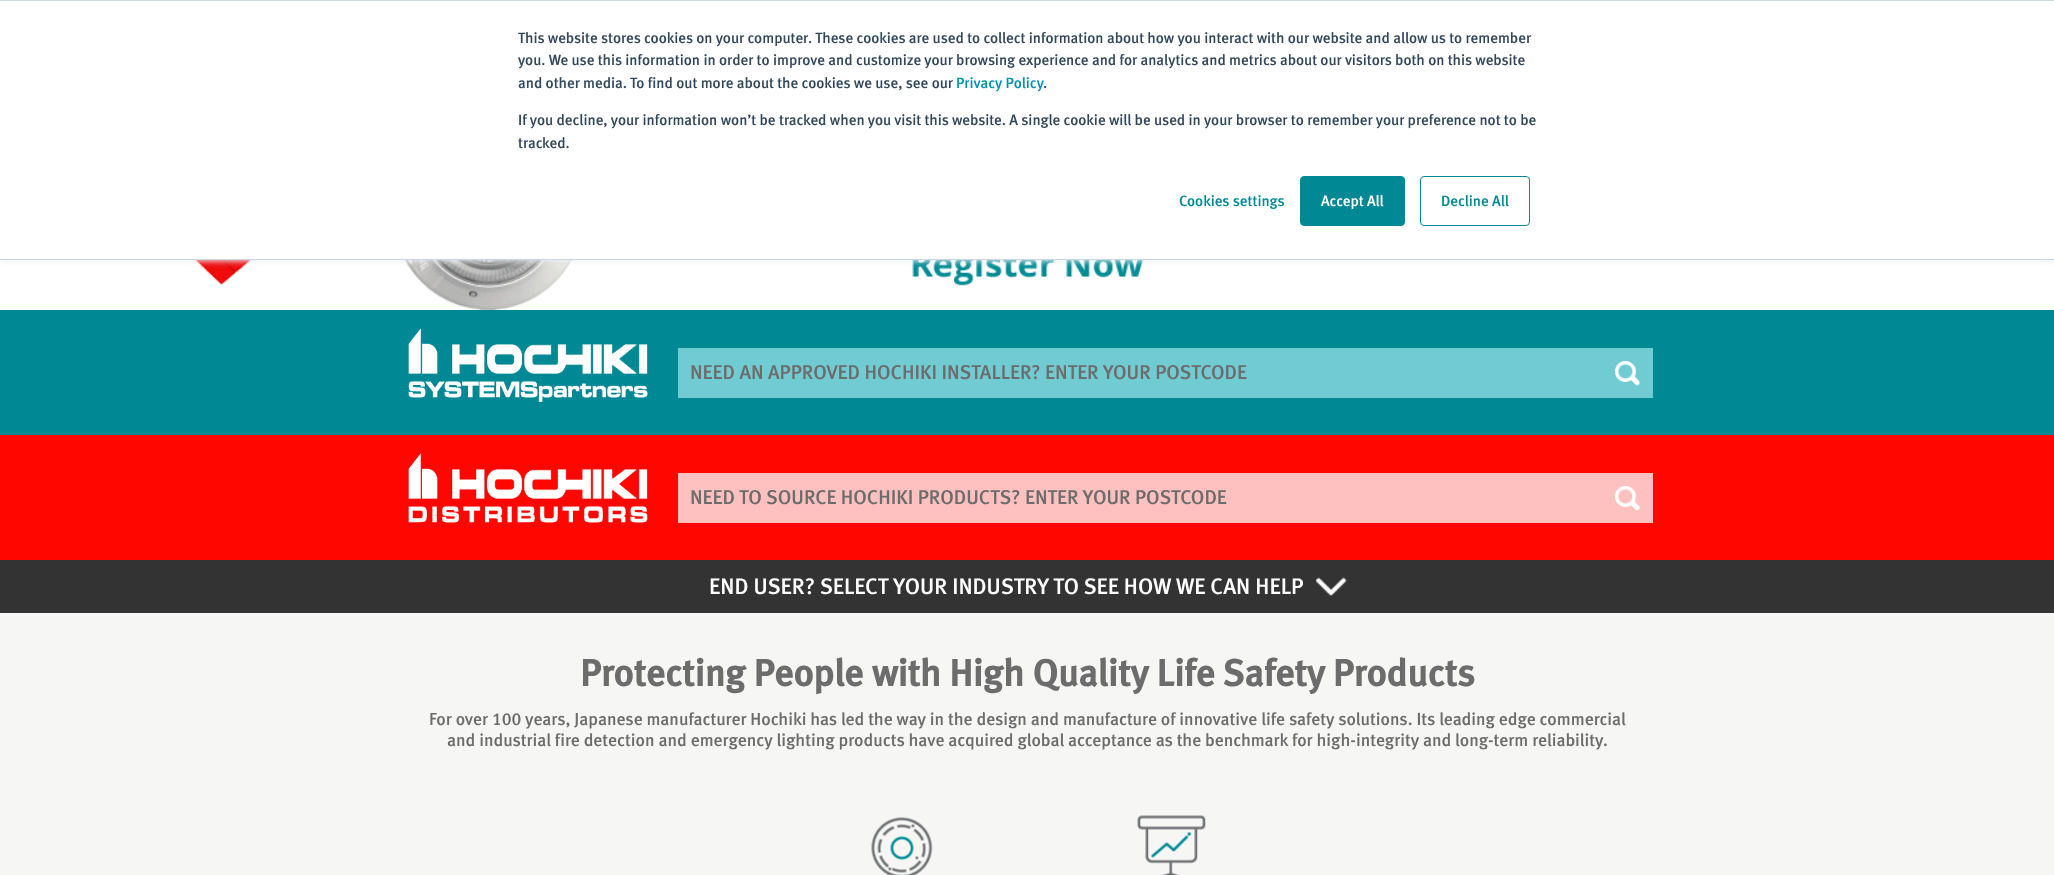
<!DOCTYPE html>
<meta charset="utf-8">
<style>body { margin: 0 } canvas { display: block }</style>
<canvas id="canvas" width="2054" height="875"></canvas>
<script type="module">
  const canvas = document.getElementById("canvas");
  const ctx = canvas.getContext("2d");
  ctx.miterLimit = 4;
  ctx.fontKerning = "normal";
  async function loadImage(src) {
    const img = new Image();
    img.src = src;
    await img.decode();
    return img;
  }

  ctx.fillStyle = "#f6f6f5";
  ctx.fillRect(0, 0, 2054, 875);
  ctx.drawImage(await loadImage("img1.png"), 0, 260, 2054, 50);
  ctx.fillStyle = "#eaf0f6";
  ctx.filter = "blur(3px)";
  ctx.beginPath();
  ctx.rect(0, 1, 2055, 260);
  ctx.fill();
  ctx.filter = "none";
  ctx.fillStyle = "#ffffff";
  ctx.fillRect(0, 1, 2054, 258);
  ctx.fillStyle = "#cbd6e2";
  ctx.fillRect(0, 0, 2054, 1);
  ctx.fillRect(0, 259, 2054, 1);
  ctx.font = "500 15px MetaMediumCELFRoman";
  ctx.fillStyle = "#33475b";
  ctx.fillText("This website stores cookies on your computer. These cookies are used to collect information about how you interact with our website and allow us to remember", 518, 43);
  ctx.fillText("you. We use this information in order to improve and customize your browsing experience and for analytics and metrics about our visitors both on this website", 518, 65);
  ctx.fillText("and other media. To find out more about the cookies we use, see our", 518, 88);
  ctx.fillStyle = "#0091ae";
  ctx.fillText("Privacy Policy", 956, 88);
  ctx.fillStyle = "#33475b";
  ctx.fillText(".", 1043, 88);
  ctx.fillText("If you decline, your information won’t be tracked when you visit this website. A single cookie will be used in your browser to remember your preference not to be", 518, 125);
  ctx.fillText("tracked.", 518, 148);
  ctx.fillStyle = "#008995";
  ctx.fillText("Cookies settings", 1179, 206);
  ctx.beginPath();
  ctx.roundRect(1300.5, 176.5, 104, 49, 3.5);
  ctx.fill();
  ctx.strokeStyle = "#008995";
  ctx.stroke();
  ctx.fillStyle = "#ffffff";
  ctx.fillText("Accept All", 1321, 206);
  ctx.beginPath();
  ctx.roundRect(1420.5, 176.5, 109, 49, 3.5);
  ctx.stroke();
  ctx.fillStyle = "#008995";
  ctx.fillText("Decline All", 1441, 206);
  ctx.fillRect(0, 310, 2054, 125);
  ctx.drawImage(await loadImage("img2.png"), 408, 328, 240, 74);
  ctx.fillStyle = "#71cbd3";
  ctx.fillRect(678, 348, 975, 50);
  ctx.font = "500 20px MetaMediumCELFRoman";
  ctx.fillStyle = "#6c6c6c";
  ctx.fillText("NEED AN APPROVED HOCHIKI INSTALLER? ENTER YOUR POSTCODE", 690, 379);
  ctx.drawImage(await loadImage("img3.png"), 1615, 361, 25, 25);
  ctx.fillStyle = "#ff0700";
  ctx.fillRect(0, 435, 2054, 125);
  ctx.drawImage(await loadImage("img4.png"), 408, 453, 240, 70);
  ctx.fillStyle = "#ffc1bf";
  ctx.fillRect(678, 473, 975, 50);
  ctx.fillStyle = "#6c6c6c";
  ctx.fillText("NEED TO SOURCE HOCHIKI PRODUCTS? ENTER YOUR POSTCODE", 690, 504);
  ctx.drawImage(await loadImage("img5.png"), 1615, 486, 25, 25);
  ctx.fillStyle = "#333333";
  ctx.fillRect(0, 560, 2054, 53);
  ctx.font = "500 22.5px MetaMediumCELFRoman";
  ctx.fillStyle = "#ffffff";
  ctx.fillText("END USER? SELECT YOUR INDUSTRY TO SEE HOW WE CAN HELP", 709, 594);
  ctx.drawImage(await loadImage("img6.png"), 1316, 577, 31, 19);
  ctx.font = "bold 37.5px MetaMediumCELFRoman";
  ctx.fillStyle = "#6c6c6c";
  ctx.fillText("Protecting People with High Quality Life Safety Products", 580, 686);
  ctx.font = "500 17.5px MetaMediumCELFRoman";
  ctx.fillText("For over 100 years, Japanese manufacturer Hochiki has led the way in the design and manufacture of innovative life safety solutions. Its leading edge commercial", 429, 725);
  ctx.fillText("and industrial fire detection and emergency lighting products have acquired global acceptance as the benchmark for high-integrity and long-term reliability.", 447, 746);
  ctx.drawImage(await loadImage("img7.png"), 871, 817, 62, 58);
  ctx.drawImage(await loadImage("img8.png"), 1137, 815, 69, 60);
</script>
